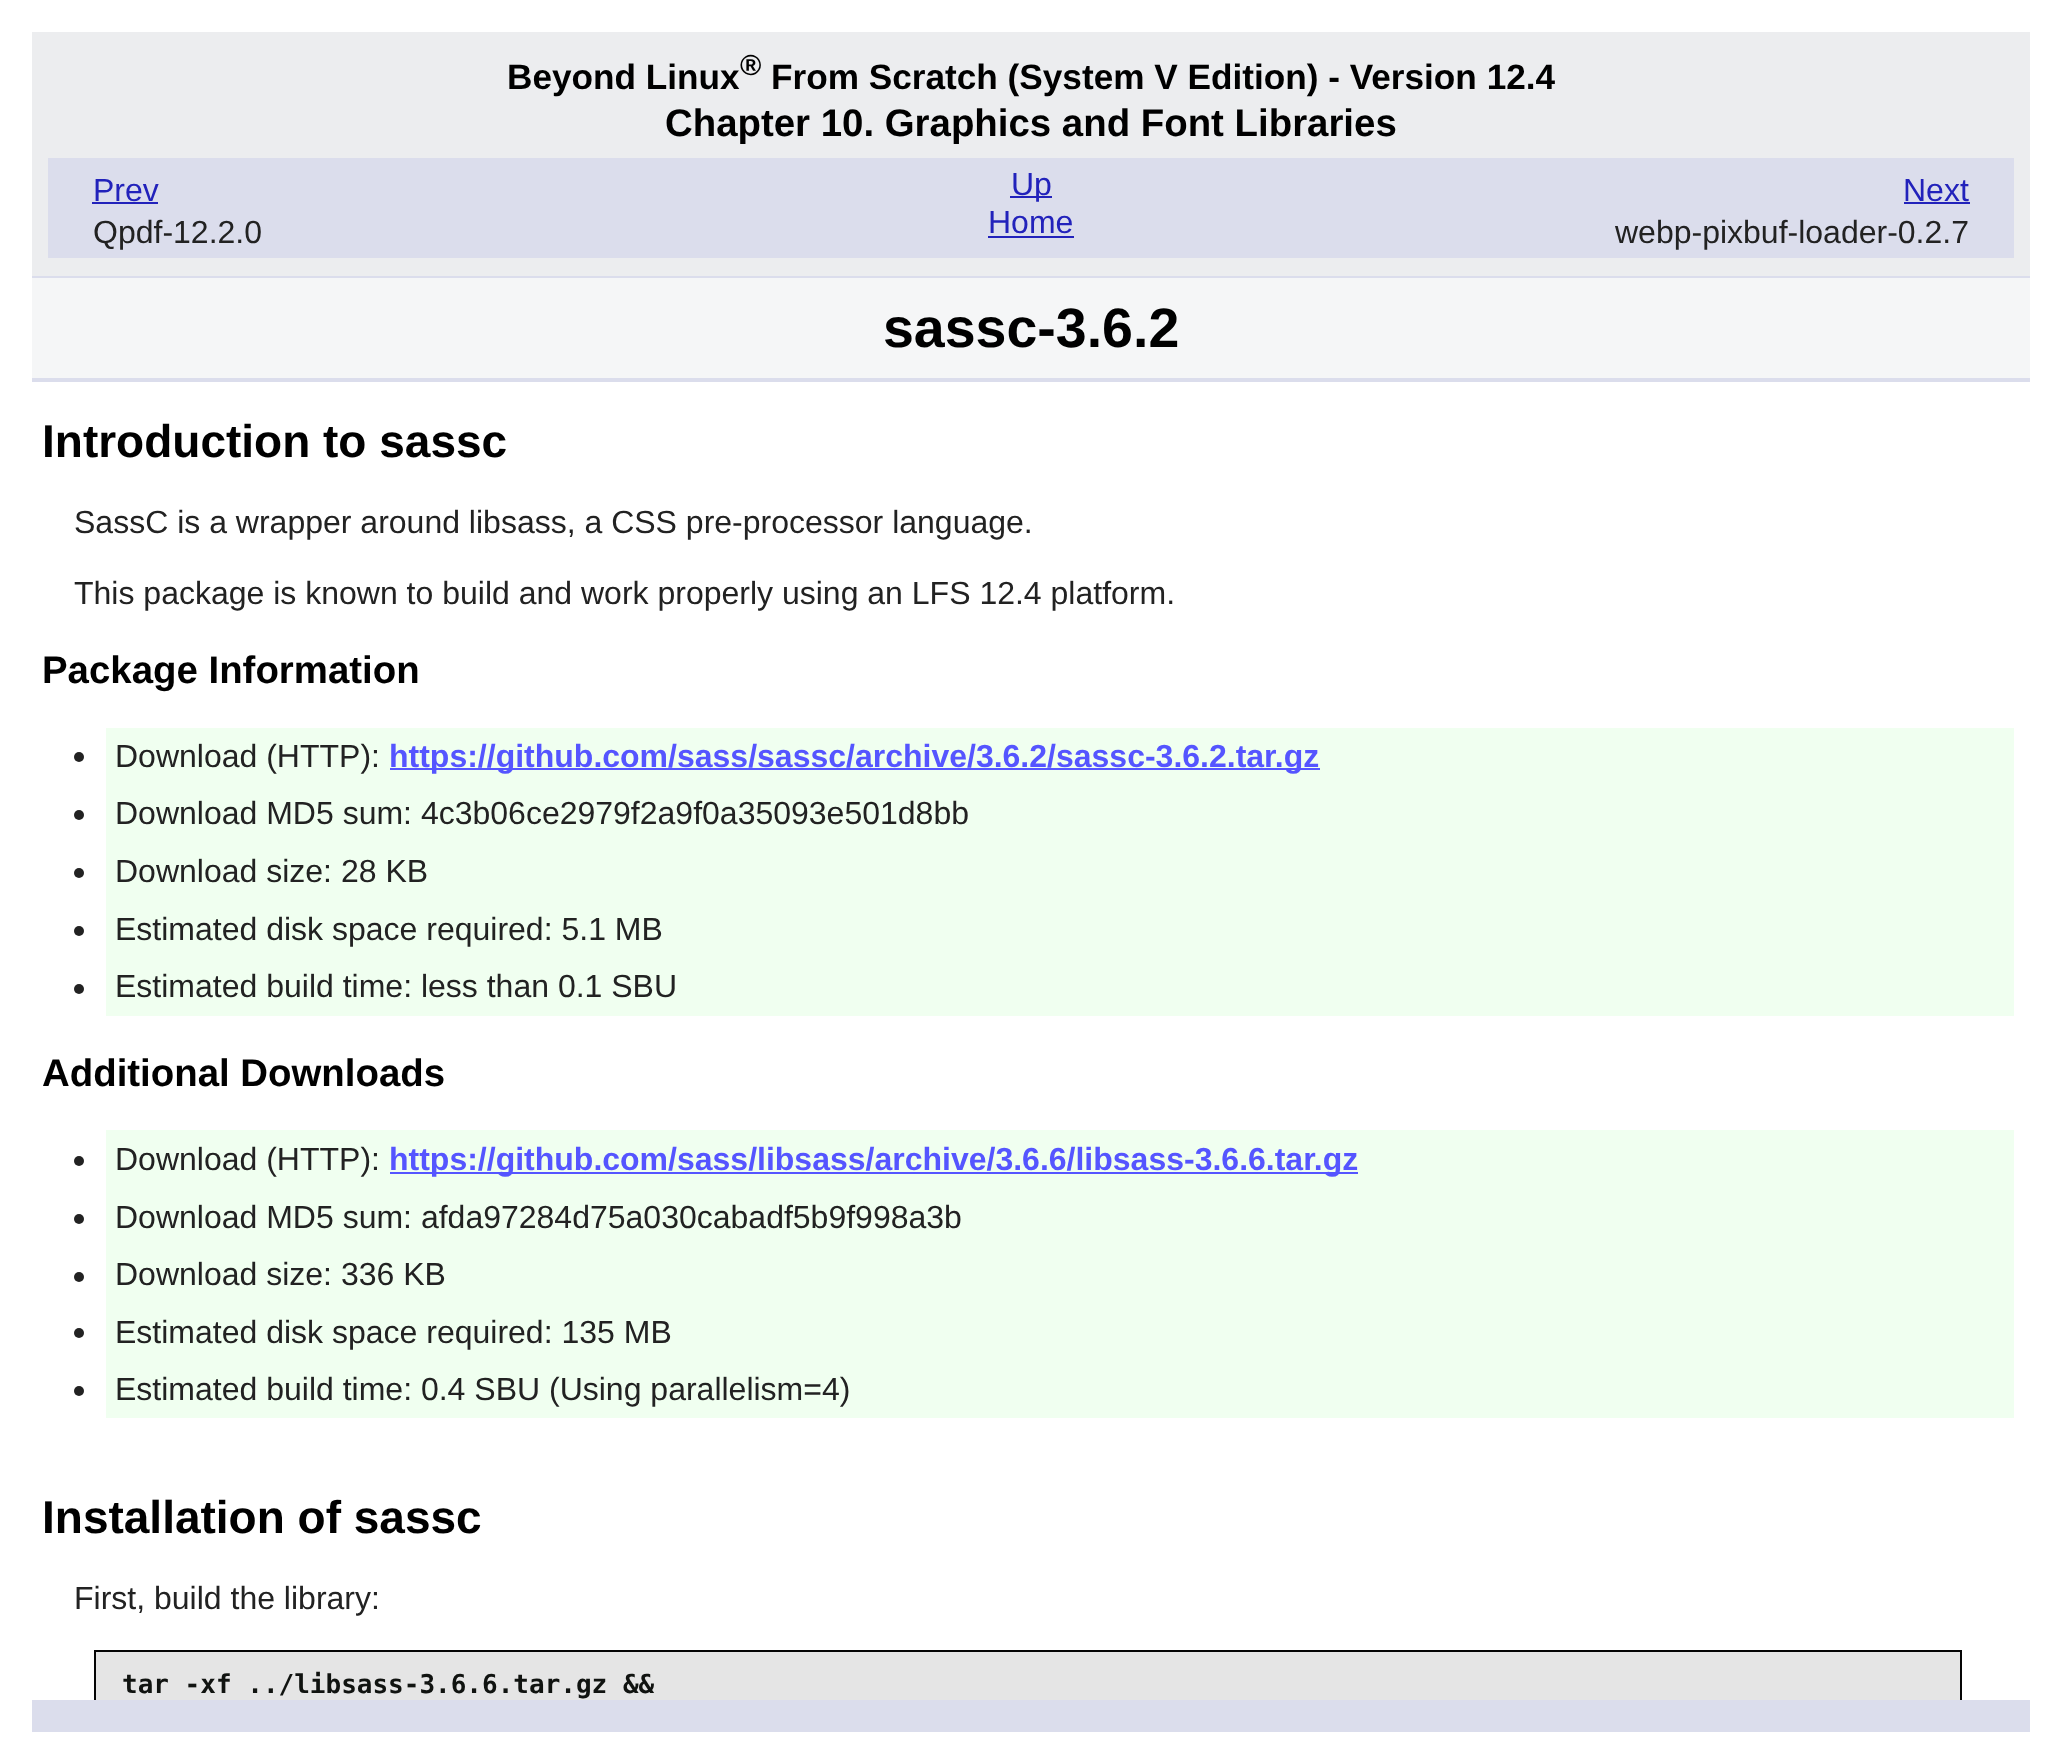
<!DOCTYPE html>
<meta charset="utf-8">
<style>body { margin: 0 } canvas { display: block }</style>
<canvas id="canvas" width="2062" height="1763"></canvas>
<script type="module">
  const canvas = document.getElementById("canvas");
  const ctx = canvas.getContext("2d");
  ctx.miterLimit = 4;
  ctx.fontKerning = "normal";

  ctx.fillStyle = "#ffffff";
  ctx.fillRect(0, 0, 2062, 1763);
  ctx.fillStyle = "#ecedef";
  ctx.fillRect(32, 32, 1998, 244);
  ctx.fillStyle = "#dbddec";
  ctx.fillRect(32, 276, 1998, 2);
  ctx.font = "bold 35.2px Liberation Sans";
  ctx.fillStyle = "#000000";
  ctx.fillText("Beyond Linux", 507, 89);
  ctx.font = "bold 29px Liberation Sans";
  ctx.fillText("®", 740, 75);
  ctx.font = "bold 35.2px Liberation Sans";
  ctx.fillText("From Scratch (System V Edition) - Version 12.4", 771, 89);
  ctx.font = "bold 38.4px Liberation Sans";
  ctx.fillText("Chapter 10. Graphics and Font Libraries", 665, 136);
  ctx.fillStyle = "#dbddec";
  ctx.fillRect(48, 158, 1966, 100);
  ctx.font = "32px Liberation Sans";
  ctx.fillStyle = "#2222bb";
  ctx.fillText("Prev", 93, 201);
  ctx.fillRect(92, 202, 66, 2);
  ctx.fillStyle = "#222222";
  ctx.fillText("Qpdf-12.2.0", 93, 243);
  ctx.fillStyle = "#2222bb";
  ctx.fillRect(1010, 196, 42, 2);
  ctx.fillText("Up", 1011, 195);
  ctx.fillText("Next", 1903, 201);
  ctx.fillRect(1904, 202, 66, 2);
  ctx.fillStyle = "#222222";
  ctx.fillText("webp-pixbuf-loader-0.2.7", 1615, 243);
  ctx.fillStyle = "#2222bb";
  ctx.fillText("Home", 988, 233);
  ctx.fillRect(988, 236, 86, 2);
  ctx.fillStyle = "#f5f6f7";
  ctx.fillRect(32, 278, 1998, 100);
  ctx.fillStyle = "#dbddec";
  ctx.fillRect(32, 378, 1998, 4);
  ctx.font = "bold 55.5px Liberation Sans";
  ctx.fillStyle = "#000000";
  ctx.fillText("sassc-3.6.2", 883, 347);
  ctx.fillStyle = "#dbddec";
  ctx.fillRect(32, 1700, 1998, 32);
  ctx.font = "bold 46px Liberation Sans";
  ctx.fillStyle = "#000000";
  ctx.fillText("Introduction to sassc", 42, 457);
  ctx.font = "32px Liberation Sans";
  ctx.fillStyle = "#222222";
  ctx.fillText("SassC is a wrapper around libsass, a CSS pre-processor language.", 74, 533);
  ctx.fillText("This package is known to build and work properly using an LFS 12.4 platform.", 74, 604);
  ctx.font = "bold 38.4px Liberation Sans";
  ctx.fillStyle = "#000000";
  ctx.fillText("Package Information", 42, 683);
  ctx.fillStyle = "#222222";
  ctx.beginPath();
  ctx.arc(79, 757, 5, 0, Math.PI * 2);
  ctx.fill();
  ctx.fillStyle = "#f0fff0";
  ctx.fillRect(106, 728, 1908, 288);
  ctx.font = "32px Liberation Sans";
  ctx.fillStyle = "#222222";
  ctx.fillText("Download (HTTP):", 115, 767);
  ctx.fillStyle = "#5555ff";
  ctx.fillRect(390, 768, 930, 2);
  ctx.font = "bold 32px Liberation Sans";
  ctx.fillText("https://github.com/sass/sassc/archive/3.6.2/sassc-3.6.2.tar.gz", 389, 767);
  ctx.fillStyle = "#222222";
  ctx.beginPath();
  ctx.arc(79, 815, 5, 0, Math.PI * 2);
  ctx.fill();
  ctx.font = "32px Liberation Sans";
  ctx.fillText("Download MD5 sum: 4c3b06ce2979f2a9f0a35093e501d8bb", 115, 824);
  ctx.beginPath();
  ctx.arc(79, 873, 5, 0, Math.PI * 2);
  ctx.fill();
  ctx.fillText("Download size: 28 KB", 115, 882);
  ctx.beginPath();
  ctx.arc(79, 931, 5, 0, Math.PI * 2);
  ctx.fill();
  ctx.fillText("Estimated disk space required: 5.1 MB", 115, 940);
  ctx.beginPath();
  ctx.arc(79, 989, 5, 0, Math.PI * 2);
  ctx.fill();
  ctx.fillText("Estimated build time: less than 0.1 SBU", 115, 997);
  ctx.font = "bold 38.4px Liberation Sans";
  ctx.fillStyle = "#000000";
  ctx.fillText("Additional Downloads", 42, 1086);
  ctx.fillStyle = "#222222";
  ctx.beginPath();
  ctx.arc(79, 1161, 5, 0, Math.PI * 2);
  ctx.fill();
  ctx.fillStyle = "#f0fff0";
  ctx.fillRect(106, 1130, 1908, 288);
  ctx.font = "32px Liberation Sans";
  ctx.fillStyle = "#222222";
  ctx.fillText("Download (HTTP):", 115, 1170);
  ctx.fillStyle = "#5555ff";
  ctx.fillRect(390, 1172, 968, 2);
  ctx.font = "bold 32px Liberation Sans";
  ctx.fillText("https://github.com/sass/libsass/archive/3.6.6/libsass-3.6.6.tar.gz", 389, 1170);
  ctx.fillStyle = "#222222";
  ctx.beginPath();
  ctx.arc(79, 1219, 5, 0, Math.PI * 2);
  ctx.fill();
  ctx.font = "32px Liberation Sans";
  ctx.fillText("Download MD5 sum: afda97284d75a030cabadf5b9f998a3b", 115, 1228);
  ctx.beginPath();
  ctx.arc(79, 1277, 5, 0, Math.PI * 2);
  ctx.fill();
  ctx.fillText("Download size: 336 KB", 115, 1285);
  ctx.beginPath();
  ctx.arc(79, 1333, 5, 0, Math.PI * 2);
  ctx.fill();
  ctx.fillText("Estimated disk space required: 135 MB", 115, 1343);
  ctx.beginPath();
  ctx.arc(79, 1391, 5, 0, Math.PI * 2);
  ctx.fill();
  ctx.fillText("Estimated build time: 0.4 SBU (Using parallelism=4)", 115, 1400);
  ctx.font = "bold 46px Liberation Sans";
  ctx.fillStyle = "#000000";
  ctx.fillText("Installation of sassc", 42, 1533);
  ctx.font = "32px Liberation Sans";
  ctx.fillStyle = "#222222";
  ctx.fillText("First, build the library:", 74, 1609);
  ctx.fillStyle = "#e5e5e5";
  ctx.fillRect(96, 1652, 1864, 48);
  ctx.save();
  ctx.beginPath();
  ctx.rect(32, 380, 1998, 1320);
  ctx.clip();
  ctx.strokeStyle = "#050505";
  ctx.lineWidth = 2;
  ctx.strokeRect(95, 1651, 1866, 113);
  ctx.restore();
  ctx.font = "bold 26px DejaVu Sans Mono";
  ctx.fillStyle = "#101310";
  ctx.fillText("tar -xf ../libsass-3.6.6.tar.gz &&", 122, 1693);
</script>
